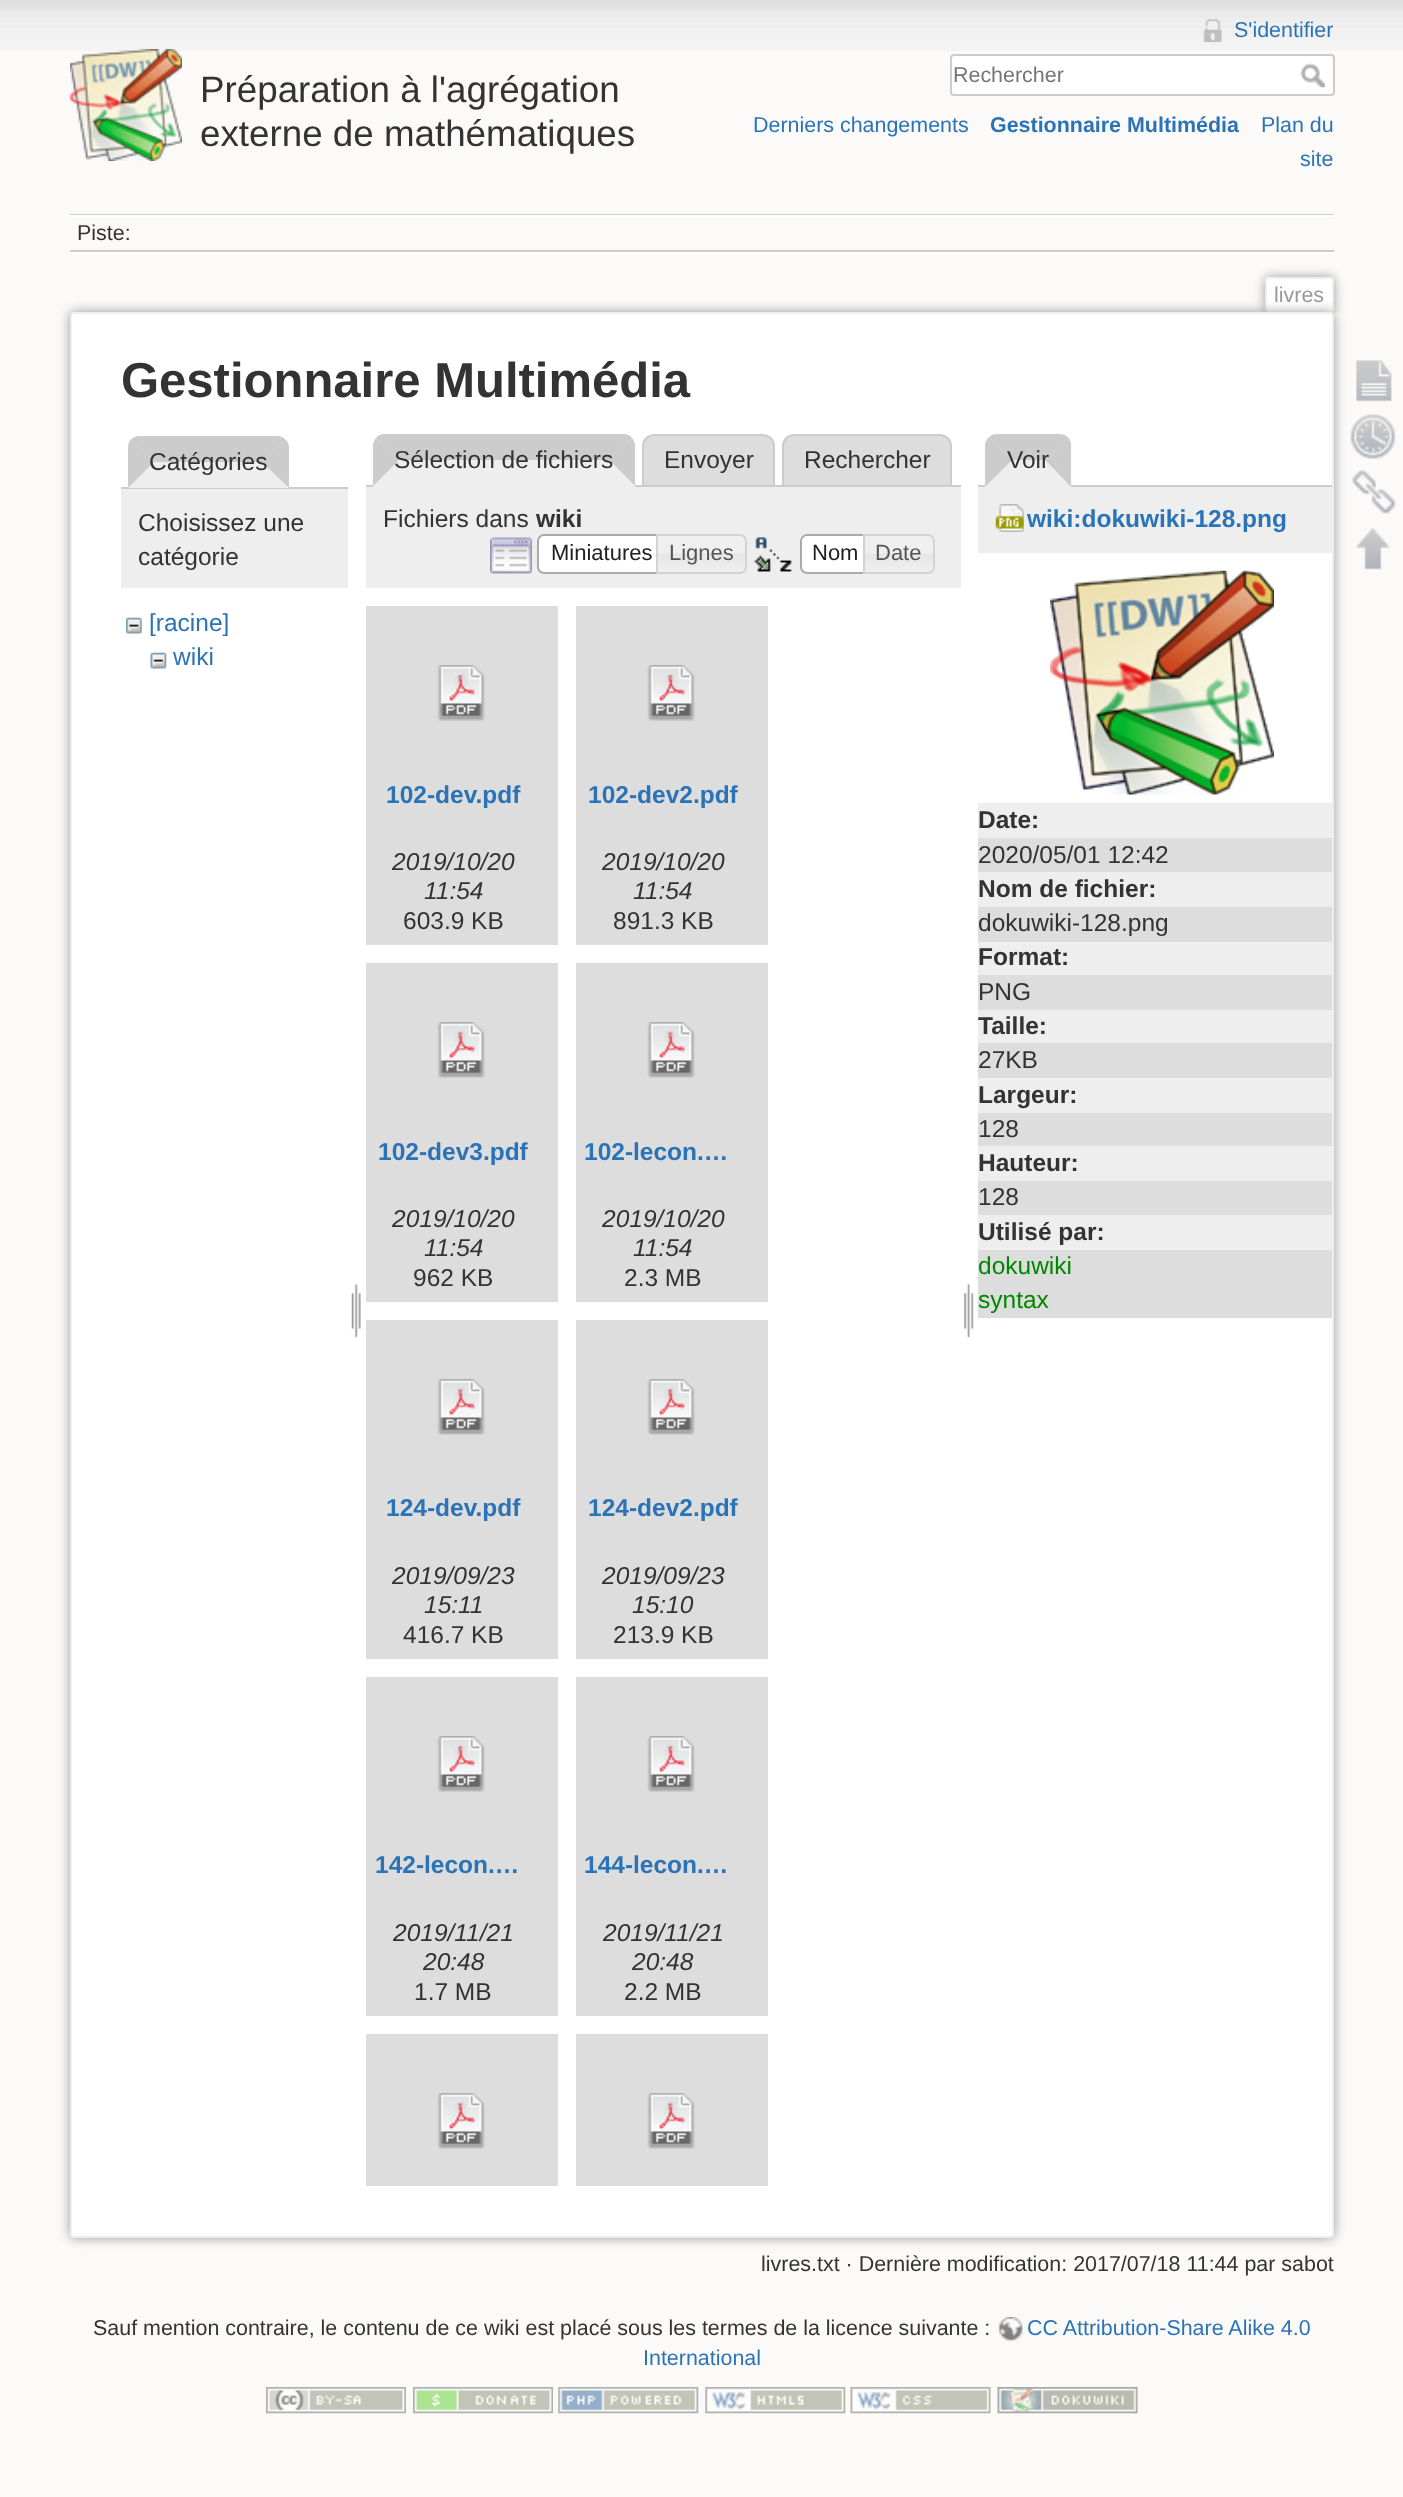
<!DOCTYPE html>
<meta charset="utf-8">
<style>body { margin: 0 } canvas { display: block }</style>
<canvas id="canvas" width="1403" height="2497"></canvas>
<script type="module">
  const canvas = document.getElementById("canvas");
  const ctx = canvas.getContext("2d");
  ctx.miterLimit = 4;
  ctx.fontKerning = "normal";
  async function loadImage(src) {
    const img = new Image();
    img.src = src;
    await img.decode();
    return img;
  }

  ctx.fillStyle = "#fbfaf9";
  ctx.fillRect(0, 0, 1403, 2497);
  ctx.drawImage(await loadImage("img1.png"), 0, 0, 1403, 51);
  ctx.drawImage(await loadImage("img2.png"), 70, 49, 112, 112);
  ctx.font = "36.75px Liberation Sans";
  ctx.fillStyle = "#333333";
  ctx.fillText("Préparation à l'agrégation", 200, 102);
  ctx.fillText("externe de mathématiques", 200, 146);
  ctx.drawImage(await loadImage("img3.png"), 1203, 19, 19, 23);
  ctx.font = "21.45px Liberation Sans";
  ctx.fillStyle = "#2b73b7";
  ctx.fillText("S'identifier", 1234, 37);
  ctx.fillStyle = "#ffffff";
  ctx.beginPath();
  ctx.roundRect(951, 55, 383, 40, 3);
  ctx.fill();
  ctx.strokeStyle = "#cccccc";
  ctx.lineWidth = 2;
  ctx.stroke();
  ctx.fillStyle = "#757575";
  ctx.fillText("Rechercher", 953, 82);
  ctx.drawImage(await loadImage("img4.png"), 1300, 63, 25, 25);
  ctx.fillStyle = "#2b73b7";
  ctx.fillText("Derniers changements", 753, 132);
  ctx.font = "bold 21.45px Liberation Sans";
  ctx.fillText("Gestionnaire Multimédia", 990, 132);
  ctx.font = "21.45px Liberation Sans";
  ctx.fillText("Plan du", 1261, 132);
  ctx.fillText("site", 1300, 166);
  ctx.fillStyle = "#cccccc";
  ctx.fillRect(70, 214, 1264, 1);
  ctx.fillStyle = "#ffffff";
  ctx.fillRect(70, 252, 1264, 2);
  ctx.fillRect(70, 215, 1264, 2);
  ctx.fillStyle = "#cccccc";
  ctx.fillRect(70, 250, 1264, 2);
  ctx.fillStyle = "#333333";
  ctx.fillText("Piste:", 77, 240);
  ctx.save();
  ctx.beginPath();
  ctx.rect(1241, 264, 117, 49);
  ctx.clip();
  ctx.fillStyle = "#999999";
  ctx.filter = "blur(5.5px)";
  ctx.beginPath();
  ctx.roundRect(1265, 277, 69, 36, 4);
  ctx.fill();
  ctx.filter = "none";
  ctx.restore();
  ctx.fillStyle = "#ffffff";
  ctx.beginPath();
  ctx.roundRect(1267, 278, 65, 35, [2, 2, 0, 0]);
  ctx.fill();
  ctx.fillStyle = "#eeeeee";
  ctx.fillRect(1267, 277, 65, 2);
  ctx.fillRect(1332, 278, 2, 35);
  ctx.fillRect(1265, 278, 2, 35);
  ctx.fillStyle = "#999999";
  ctx.fillText("livres", 1274, 302);
  ctx.filter = "blur(6px)";
  ctx.beginPath();
  ctx.roundRect(70, 312, 1264, 1926, 4);
  ctx.fill();
  ctx.filter = "none";
  ctx.fillStyle = "#ffffff";
  ctx.beginPath();
  ctx.roundRect(71, 313, 1262, 1924, 3);
  ctx.fill();
  ctx.strokeStyle = "#eeeeee";
  ctx.stroke();
  ctx.font = "bold 49px Liberation Sans";
  ctx.fillStyle = "#333333";
  ctx.fillText("Gestionnaire Multimédia", 121, 397);
  ctx.fillStyle = "#cccccc";
  ctx.fillRect(121, 487, 227, 2);
  ctx.fillStyle = "#eeeeee";
  ctx.beginPath();
  ctx.roundRect(128, 436, 161, 52, [12, 12, 0, 0]);
  ctx.fill();
  ctx.fillStyle = "#cccccc";
  ctx.beginPath();
  ctx.moveTo(140, 436);
  ctx.bezierCurveTo(136, 436, 134, 437, 131, 439);
  ctx.lineTo(154, 462);
  ctx.lineTo(262, 462);
  ctx.lineTo(285, 439);
  ctx.bezierCurveTo(283, 437, 280, 436, 276, 436);
  ctx.closePath();
  ctx.fill();
  ctx.beginPath();
  ctx.moveTo(289, 488);
  ctx.lineTo(262, 462);
  ctx.lineTo(285, 439);
  ctx.bezierCurveTo(287, 441, 288, 443, 289, 446);
  ctx.closePath();
  ctx.fill();
  ctx.fillStyle = "#eeeeee";
  ctx.beginPath();
  ctx.moveTo(288, 488);
  ctx.lineTo(262, 462);
  ctx.lineTo(154, 462);
  ctx.lineTo(128, 488);
  ctx.closePath();
  ctx.fill();
  ctx.fillStyle = "#cccccc";
  ctx.beginPath();
  ctx.moveTo(131, 439);
  ctx.bezierCurveTo(129, 442, 128, 444, 128, 448);
  ctx.lineTo(128, 488);
  ctx.lineTo(154, 462);
  ctx.closePath();
  ctx.fill();
  ctx.font = "24.5px Liberation Sans";
  ctx.fillStyle = "#333333";
  ctx.fillText("Catégories", 149, 470);
  ctx.fillStyle = "#eeeeee";
  ctx.fillRect(121, 489, 227, 99);
  ctx.fillStyle = "#333333";
  ctx.fillText("Choisissez une", 138, 531);
  ctx.fillText("catégorie", 138, 565);
  ctx.drawImage(await loadImage("img5.png"), 126, 617, 16, 17);
  ctx.fillStyle = "#2b73b7";
  ctx.fillText("[racine]", 149, 631);
  ctx.drawImage(await loadImage("img6.png"), 150, 652, 17, 17);
  ctx.fillText("wiki", 173, 665);
  ctx.drawImage(await loadImage("img7.png"), 351, 1283, 10, 55);
  ctx.fillStyle = "#dddddd";
  ctx.beginPath();
  ctx.roundRect(643, 435, 131, 51, [11, 11, 0, 0]);
  ctx.fill();
  ctx.strokeStyle = "#cccccc";
  ctx.stroke();
  ctx.beginPath();
  ctx.roundRect(783, 435, 168, 51, [11, 11, 0, 0]);
  ctx.fill();
  ctx.stroke();
  ctx.fillStyle = "#cccccc";
  ctx.fillRect(366, 485, 595, 2);
  ctx.fillStyle = "#eeeeee";
  ctx.beginPath();
  ctx.roundRect(373, 434, 262, 53, [12, 12, 0, 0]);
  ctx.fill();
  ctx.fillStyle = "#cccccc";
  ctx.beginPath();
  ctx.moveTo(385, 434);
  ctx.lineTo(623, 434);
  ctx.bezierCurveTo(627, 434, 630, 435, 632, 438);
  ctx.lineTo(609, 460);
  ctx.lineTo(399, 460);
  ctx.lineTo(376, 438);
  ctx.bezierCurveTo(378, 435, 381, 434, 385, 434);
  ctx.closePath();
  ctx.fill();
  ctx.beginPath();
  ctx.moveTo(632, 438);
  ctx.lineTo(609, 460);
  ctx.lineTo(635, 486);
  ctx.lineTo(635, 446);
  ctx.bezierCurveTo(635, 443, 634, 440, 632, 438);
  ctx.closePath();
  ctx.fill();
  ctx.fillStyle = "#eeeeee";
  ctx.beginPath();
  ctx.moveTo(635, 486);
  ctx.lineTo(609, 460);
  ctx.lineTo(399, 460);
  ctx.lineTo(373, 486);
  ctx.closePath();
  ctx.fill();
  ctx.fillStyle = "#cccccc";
  ctx.beginPath();
  ctx.moveTo(376, 438);
  ctx.bezierCurveTo(374, 440, 373, 443, 373, 446);
  ctx.lineTo(373, 486);
  ctx.lineTo(399, 460);
  ctx.closePath();
  ctx.fill();
  ctx.fillStyle = "#333333";
  ctx.fillText("Sélection de fichiers", 394, 468);
  ctx.fillText("Envoyer", 664, 468);
  ctx.fillText("Rechercher", 804, 468);
  ctx.fillStyle = "#eeeeee";
  ctx.fillRect(366, 487, 595, 101);
  ctx.fillStyle = "#333333";
  ctx.fillText("Fichiers dans", 383, 527);
  ctx.font = "bold 24.5px Liberation Sans";
  ctx.fillText("wiki", 536, 527);
  ctx.drawImage(await loadImage("img8.png"), 490, 537, 42, 37);
  ctx.fillStyle = "#ffffff";
  ctx.beginPath();
  ctx.roundRect(537, 534, 128, 40, [7, 0, 0, 7]);
  ctx.fill();
  ctx.drawImage(await loadImage("img9.png"), 539, 534, 3, 2);
  ctx.beginPath();
  ctx.roundRect(538, 535, 126, 38, [6, 0, 0, 6]);
  ctx.strokeStyle = "#aaaaaa";
  ctx.stroke();
  ctx.font = "22px Liberation Sans";
  ctx.fillStyle = "#212121";
  ctx.fillText("Miniatures", 551, 560);
  ctx.drawImage(await loadImage("img10.png"), 658, 534, 89, 40);
  ctx.beginPath();
  ctx.roundRect(657, 535, 89, 38, [0, 6, 6, 0]);
  ctx.strokeStyle = "#d3d3d3";
  ctx.stroke();
  ctx.fillStyle = "#555555";
  ctx.fillText("Lignes", 669, 560);
  ctx.drawImage(await loadImage("img11.png"), 753, 537, 39, 35);
  ctx.fillStyle = "#ffffff";
  ctx.beginPath();
  ctx.roundRect(800, 534, 72, 40, [7, 0, 0, 7]);
  ctx.fill();
  ctx.drawImage(await loadImage("img12.png"), 800, 534, 5, 40);
  ctx.beginPath();
  ctx.roundRect(801, 535, 70, 38, [6, 0, 0, 6]);
  ctx.strokeStyle = "#aaaaaa";
  ctx.stroke();
  ctx.fillStyle = "#212121";
  ctx.fillText("Nom", 812, 560);
  ctx.drawImage(await loadImage("img13.png"), 862, 534, 72, 40);
  ctx.beginPath();
  ctx.roundRect(864, 535, 70, 38, [0, 6, 6, 0]);
  ctx.strokeStyle = "#d3d3d3";
  ctx.stroke();
  ctx.fillStyle = "#555555";
  ctx.fillText("Date", 875, 560);
  ctx.fillStyle = "#dddddd";
  ctx.fillRect(366, 606, 192, 339);
  ctx.drawImage(await loadImage("img14.png"), 437, 665, 48, 56);
  ctx.font = "bold 24.5px Liberation Sans";
  ctx.fillStyle = "#2b73b7";
  ctx.fillText("102-dev.pdf", 386, 803);
  ctx.font = "italic 24.5px Liberation Sans";
  ctx.fillStyle = "#333333";
  ctx.fillText("2019/10/20", 392, 870);
  ctx.fillText("11:54", 424, 899);
  ctx.font = "24.5px Liberation Sans";
  ctx.fillText("603.9 KB", 403, 929);
  ctx.fillStyle = "#dddddd";
  ctx.fillRect(576, 606, 192, 339);
  ctx.drawImage(await loadImage("img14.png"), 647, 665, 48, 56);
  ctx.font = "bold 24.5px Liberation Sans";
  ctx.fillStyle = "#2b73b7";
  ctx.fillText("102-dev2.pdf", 588, 803);
  ctx.font = "italic 24.5px Liberation Sans";
  ctx.fillStyle = "#333333";
  ctx.fillText("2019/10/20", 602, 870);
  ctx.fillText("11:54", 633, 899);
  ctx.font = "24.5px Liberation Sans";
  ctx.fillText("891.3 KB", 613, 929);
  ctx.fillStyle = "#dddddd";
  ctx.fillRect(366, 963, 192, 339);
  ctx.drawImage(await loadImage("img14.png"), 437, 1022, 48, 56);
  ctx.font = "bold 24.5px Liberation Sans";
  ctx.fillStyle = "#2b73b7";
  ctx.fillText("102-dev3.pdf", 378, 1160);
  ctx.font = "italic 24.5px Liberation Sans";
  ctx.fillStyle = "#333333";
  ctx.fillText("2019/10/20", 392, 1227);
  ctx.fillText("11:54", 424, 1256);
  ctx.font = "24.5px Liberation Sans";
  ctx.fillText("962 KB", 413, 1286);
  ctx.fillStyle = "#dddddd";
  ctx.fillRect(576, 963, 192, 339);
  ctx.drawImage(await loadImage("img14.png"), 647, 1022, 48, 56);
  ctx.font = "bold 24.5px Liberation Sans";
  ctx.fillStyle = "#2b73b7";
  ctx.fillText("102-lecon.…", 584, 1160);
  ctx.font = "italic 24.5px Liberation Sans";
  ctx.fillStyle = "#333333";
  ctx.fillText("2019/10/20", 602, 1227);
  ctx.fillText("11:54", 633, 1256);
  ctx.font = "24.5px Liberation Sans";
  ctx.fillText("2.3 MB", 624, 1286);
  ctx.fillStyle = "#dddddd";
  ctx.fillRect(366, 1320, 192, 339);
  ctx.drawImage(await loadImage("img14.png"), 437, 1379, 48, 56);
  ctx.font = "bold 24.5px Liberation Sans";
  ctx.fillStyle = "#2b73b7";
  ctx.fillText("124-dev.pdf", 386, 1516);
  ctx.font = "italic 24.5px Liberation Sans";
  ctx.fillStyle = "#333333";
  ctx.fillText("2019/09/23", 392, 1584);
  ctx.fillText("15:11", 424, 1613);
  ctx.font = "24.5px Liberation Sans";
  ctx.fillText("416.7 KB", 403, 1643);
  ctx.fillStyle = "#dddddd";
  ctx.fillRect(576, 1320, 192, 339);
  ctx.drawImage(await loadImage("img14.png"), 647, 1379, 48, 56);
  ctx.font = "bold 24.5px Liberation Sans";
  ctx.fillStyle = "#2b73b7";
  ctx.fillText("124-dev2.pdf", 588, 1516);
  ctx.font = "italic 24.5px Liberation Sans";
  ctx.fillStyle = "#333333";
  ctx.fillText("2019/09/23", 602, 1584);
  ctx.fillText("15:10", 632, 1613);
  ctx.font = "24.5px Liberation Sans";
  ctx.fillText("213.9 KB", 613, 1643);
  ctx.fillStyle = "#dddddd";
  ctx.fillRect(366, 1677, 192, 339);
  ctx.drawImage(await loadImage("img14.png"), 437, 1736, 48, 56);
  ctx.font = "bold 24.5px Liberation Sans";
  ctx.fillStyle = "#2b73b7";
  ctx.fillText("142-lecon.…", 375, 1873);
  ctx.font = "italic 24.5px Liberation Sans";
  ctx.fillStyle = "#333333";
  ctx.fillText("2019/11/21", 393, 1941);
  ctx.fillText("20:48", 423, 1970);
  ctx.font = "24.5px Liberation Sans";
  ctx.fillText("1.7 MB", 414, 2000);
  ctx.fillStyle = "#dddddd";
  ctx.fillRect(576, 1677, 192, 339);
  ctx.drawImage(await loadImage("img14.png"), 647, 1736, 48, 56);
  ctx.font = "bold 24.5px Liberation Sans";
  ctx.fillStyle = "#2b73b7";
  ctx.fillText("144-lecon.…", 584, 1873);
  ctx.font = "italic 24.5px Liberation Sans";
  ctx.fillStyle = "#333333";
  ctx.fillText("2019/11/21", 603, 1941);
  ctx.fillText("20:48", 632, 1970);
  ctx.font = "24.5px Liberation Sans";
  ctx.fillText("2.2 MB", 624, 2000);
  ctx.fillStyle = "#dddddd";
  ctx.fillRect(366, 2034, 192, 152);
  ctx.drawImage(await loadImage("img14.png"), 437, 2093, 48, 56);
  ctx.fillRect(576, 2034, 192, 152);
  ctx.drawImage(await loadImage("img14.png"), 647, 2093, 48, 56);
  ctx.drawImage(await loadImage("img15.png"), 964, 1283, 10, 55);
  ctx.fillStyle = "#cccccc";
  ctx.fillRect(978, 485, 354, 2);
  ctx.fillStyle = "#eeeeee";
  ctx.beginPath();
  ctx.roundRect(985, 434, 86, 53, [12, 12, 0, 0]);
  ctx.fill();
  ctx.fillStyle = "#cccccc";
  ctx.beginPath();
  ctx.moveTo(998, 434);
  ctx.lineTo(1059, 434);
  ctx.bezierCurveTo(1062, 434, 1066, 435, 1068, 437);
  ctx.lineTo(1045, 460);
  ctx.lineTo(1012, 460);
  ctx.lineTo(989, 437);
  ctx.bezierCurveTo(991, 435, 994, 434, 998, 434);
  ctx.closePath();
  ctx.fill();
  ctx.beginPath();
  ctx.moveTo(1068, 437);
  ctx.lineTo(1045, 460);
  ctx.lineTo(1070, 486);
  ctx.lineTo(1071, 486);
  ctx.lineTo(1071, 446);
  ctx.bezierCurveTo(1071, 442, 1070, 440, 1068, 437);
  ctx.closePath();
  ctx.fill();
  ctx.fillStyle = "#eeeeee";
  ctx.beginPath();
  ctx.moveTo(1070, 486);
  ctx.lineTo(1045, 460);
  ctx.lineTo(1012, 460);
  ctx.lineTo(986, 486);
  ctx.closePath();
  ctx.fill();
  ctx.fillStyle = "#cccccc";
  ctx.beginPath();
  ctx.moveTo(986, 486);
  ctx.lineTo(1012, 460);
  ctx.lineTo(989, 437);
  ctx.bezierCurveTo(987, 439, 986, 441, 985, 444);
  ctx.lineTo(985, 486);
  ctx.closePath();
  ctx.fill();
  ctx.fillStyle = "#333333";
  ctx.fillText("Voir", 1007, 468);
  ctx.fillStyle = "#eeeeee";
  ctx.fillRect(978, 487, 354, 66);
  ctx.drawImage(await loadImage("img16.png"), 995, 504, 29, 28);
  ctx.font = "bold 24.5px Liberation Sans";
  ctx.fillStyle = "#2b73b7";
  ctx.fillText("wiki:dokuwiki-128.png", 1027, 527);
  ctx.drawImage(await loadImage("img17.png"), 1050, 570, 224, 225);
  ctx.fillStyle = "#eeeeee";
  ctx.fillRect(978, 803, 354, 35);
  ctx.fillStyle = "#333333";
  ctx.fillText("Date:", 978, 828);
  ctx.fillStyle = "#dddddd";
  ctx.fillRect(978, 838, 354, 34);
  ctx.font = "24.5px Liberation Sans";
  ctx.fillStyle = "#333333";
  ctx.fillText("2020/05/01 12:42", 978, 863);
  ctx.fillStyle = "#eeeeee";
  ctx.fillRect(978, 872, 354, 35);
  ctx.font = "bold 24.5px Liberation Sans";
  ctx.fillStyle = "#333333";
  ctx.fillText("Nom de fichier:", 978, 897);
  ctx.fillStyle = "#dddddd";
  ctx.fillRect(978, 907, 354, 35);
  ctx.font = "24.5px Liberation Sans";
  ctx.fillStyle = "#333333";
  ctx.fillText("dokuwiki-128.png", 978, 931);
  ctx.fillStyle = "#eeeeee";
  ctx.fillRect(978, 942, 354, 33);
  ctx.font = "bold 24.5px Liberation Sans";
  ctx.fillStyle = "#333333";
  ctx.fillText("Format:", 978, 965);
  ctx.fillStyle = "#dddddd";
  ctx.fillRect(978, 975, 354, 35);
  ctx.font = "24.5px Liberation Sans";
  ctx.fillStyle = "#333333";
  ctx.fillText("PNG", 978, 1000);
  ctx.fillStyle = "#eeeeee";
  ctx.fillRect(978, 1010, 354, 33);
  ctx.font = "bold 24.5px Liberation Sans";
  ctx.fillStyle = "#333333";
  ctx.fillText("Taille:", 978, 1034);
  ctx.fillStyle = "#dddddd";
  ctx.fillRect(978, 1043, 354, 35);
  ctx.font = "24.5px Liberation Sans";
  ctx.fillStyle = "#333333";
  ctx.fillText("27KB", 978, 1068);
  ctx.fillStyle = "#eeeeee";
  ctx.fillRect(978, 1078, 354, 35);
  ctx.font = "bold 24.5px Liberation Sans";
  ctx.fillStyle = "#333333";
  ctx.fillText("Largeur:", 978, 1103);
  ctx.fillStyle = "#dddddd";
  ctx.fillRect(978, 1113, 354, 33);
  ctx.font = "24.5px Liberation Sans";
  ctx.fillStyle = "#333333";
  ctx.fillText("128", 978, 1137);
  ctx.fillStyle = "#eeeeee";
  ctx.fillRect(978, 1146, 354, 35);
  ctx.font = "bold 24.5px Liberation Sans";
  ctx.fillStyle = "#333333";
  ctx.fillText("Hauteur:", 978, 1171);
  ctx.fillStyle = "#dddddd";
  ctx.fillRect(978, 1181, 354, 34);
  ctx.font = "24.5px Liberation Sans";
  ctx.fillStyle = "#333333";
  ctx.fillText("128", 978, 1205);
  ctx.fillStyle = "#eeeeee";
  ctx.fillRect(978, 1215, 354, 35);
  ctx.font = "bold 24.5px Liberation Sans";
  ctx.fillStyle = "#333333";
  ctx.fillText("Utilisé par:", 978, 1240);
  ctx.fillStyle = "#dddddd";
  ctx.fillRect(978, 1250, 354, 68);
  ctx.font = "24.5px Liberation Sans";
  ctx.fillStyle = "#008800";
  ctx.fillText("dokuwiki", 978, 1274);
  ctx.fillText("syntax", 978, 1308);
  ctx.font = "21.45px Liberation Sans";
  ctx.fillStyle = "#333333";
  ctx.fillText("livres.txt · Dernière modification: 2017/07/18 11:44 par sabot", 761, 2271);
  ctx.drawImage(await loadImage("img18.png"), 1356, 360, 36, 42);
  ctx.drawImage(await loadImage("img19.png"), 1350, 414, 46, 45);
  ctx.drawImage(await loadImage("img20.png"), 1352, 470, 44, 44);
  ctx.drawImage(await loadImage("img21.png"), 1356, 528, 34, 42);
  ctx.fillText("Sauf mention contraire, le contenu de ce wiki est placé sous les termes de la licence suivante :", 93, 2335);
  ctx.drawImage(await loadImage("img22.png"), 998, 2317, 25, 25);
  ctx.fillStyle = "#2b73b7";
  ctx.fillText("CC Attribution-Share Alike 4.0", 1027, 2335);
  ctx.fillText("International", 643, 2365);
  ctx.drawImage(await loadImage("img23.png"), 266, 2387, 140, 27);
  ctx.drawImage(await loadImage("img24.png"), 413, 2387, 140, 27);
  ctx.drawImage(await loadImage("img25.png"), 558, 2387, 141, 27);
  ctx.drawImage(await loadImage("img26.png"), 705, 2387, 141, 27);
  ctx.drawImage(await loadImage("img27.png"), 850, 2387, 141, 27);
  ctx.drawImage(await loadImage("img28.png"), 997, 2387, 141, 27);
</script>
